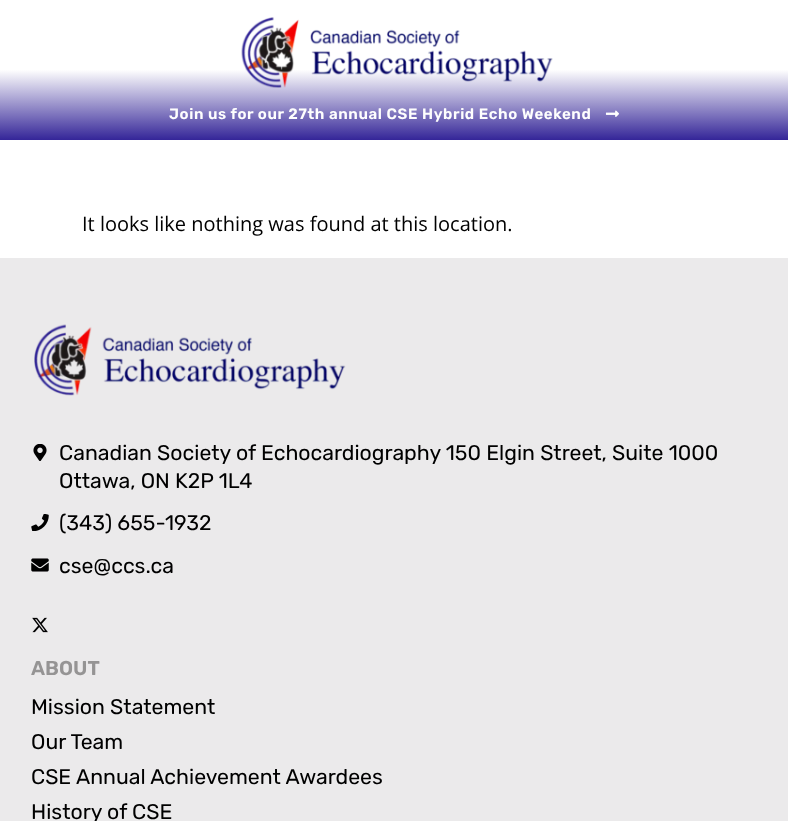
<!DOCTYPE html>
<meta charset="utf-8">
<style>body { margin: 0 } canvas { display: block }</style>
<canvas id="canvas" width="788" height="821"></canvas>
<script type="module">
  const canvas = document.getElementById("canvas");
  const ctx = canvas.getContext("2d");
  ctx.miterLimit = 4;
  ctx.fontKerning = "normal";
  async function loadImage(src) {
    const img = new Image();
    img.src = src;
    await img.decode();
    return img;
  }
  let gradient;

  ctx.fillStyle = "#ffffff";
  ctx.fillRect(0, 0, 788, 821);
  gradient = ctx.createLinearGradient(394, 0, 394, 140);
  gradient.addColorStop(0.5, "#fefefe");
  gradient.addColorStop(1, "#342598");
  ctx.fillStyle = gradient;
  ctx.fillRect(0, 70, 788, 70);
  ctx.drawImage(await loadImage("img1.png"), 241, 17, 312, 71);
  ctx.letterSpacing = "0.62px";
  ctx.font = "600 15px Rubik";
  ctx.fillStyle = "#fefefe";
  ctx.fillText("Join us for our 27th annual CSE Hybrid Echo Weekend", 169, 119);
  ctx.drawImage(await loadImage("img2.png"), 605, 110, 14, 7);
  ctx.letterSpacing = "0px";
  ctx.font = "20px Open Sans";
  ctx.fillStyle = "#000000";
  ctx.fillText("It looks like nothing was found at this location.", 82, 231);
  ctx.fillStyle = "#ebeaeb";
  ctx.fillRect(0, 258, 788, 563);
  ctx.drawImage(await loadImage("img3.png"), 34, 324, 312, 72);
  ctx.drawImage(await loadImage("img4.png"), 33, 444, 14, 17);
  ctx.font = "21.25px Rubik";
  ctx.fillStyle = "#000000";
  ctx.fillText("Canadian Society of Echocardiography 150 Elgin Street, Suite 1000", 59, 460);
  ctx.fillText("Ottawa, ON K2P 1L4", 59, 488);
  ctx.drawImage(await loadImage("img5.png"), 31, 514, 18, 17);
  ctx.fillText("(343) 655-1932", 59, 530);
  ctx.drawImage(await loadImage("img6.png"), 31, 558, 18, 14);
  ctx.fillText("cse@ccs.ca", 59, 573);
  ctx.drawImage(await loadImage("img7.png"), 32, 617, 16, 16);
  ctx.font = "600 20px Rubik";
  ctx.fillStyle = "#959494";
  ctx.fillText("ABOUT", 31, 675);
  ctx.font = "21.25px Rubik";
  ctx.fillStyle = "#000000";
  ctx.fillText("Mission Statement", 31, 714);
  ctx.fillText("Our Team", 31, 749);
  ctx.fillText("CSE Annual Achievement Awardees", 31, 784);
  ctx.fillText("History of CSE", 31, 819);
</script>
